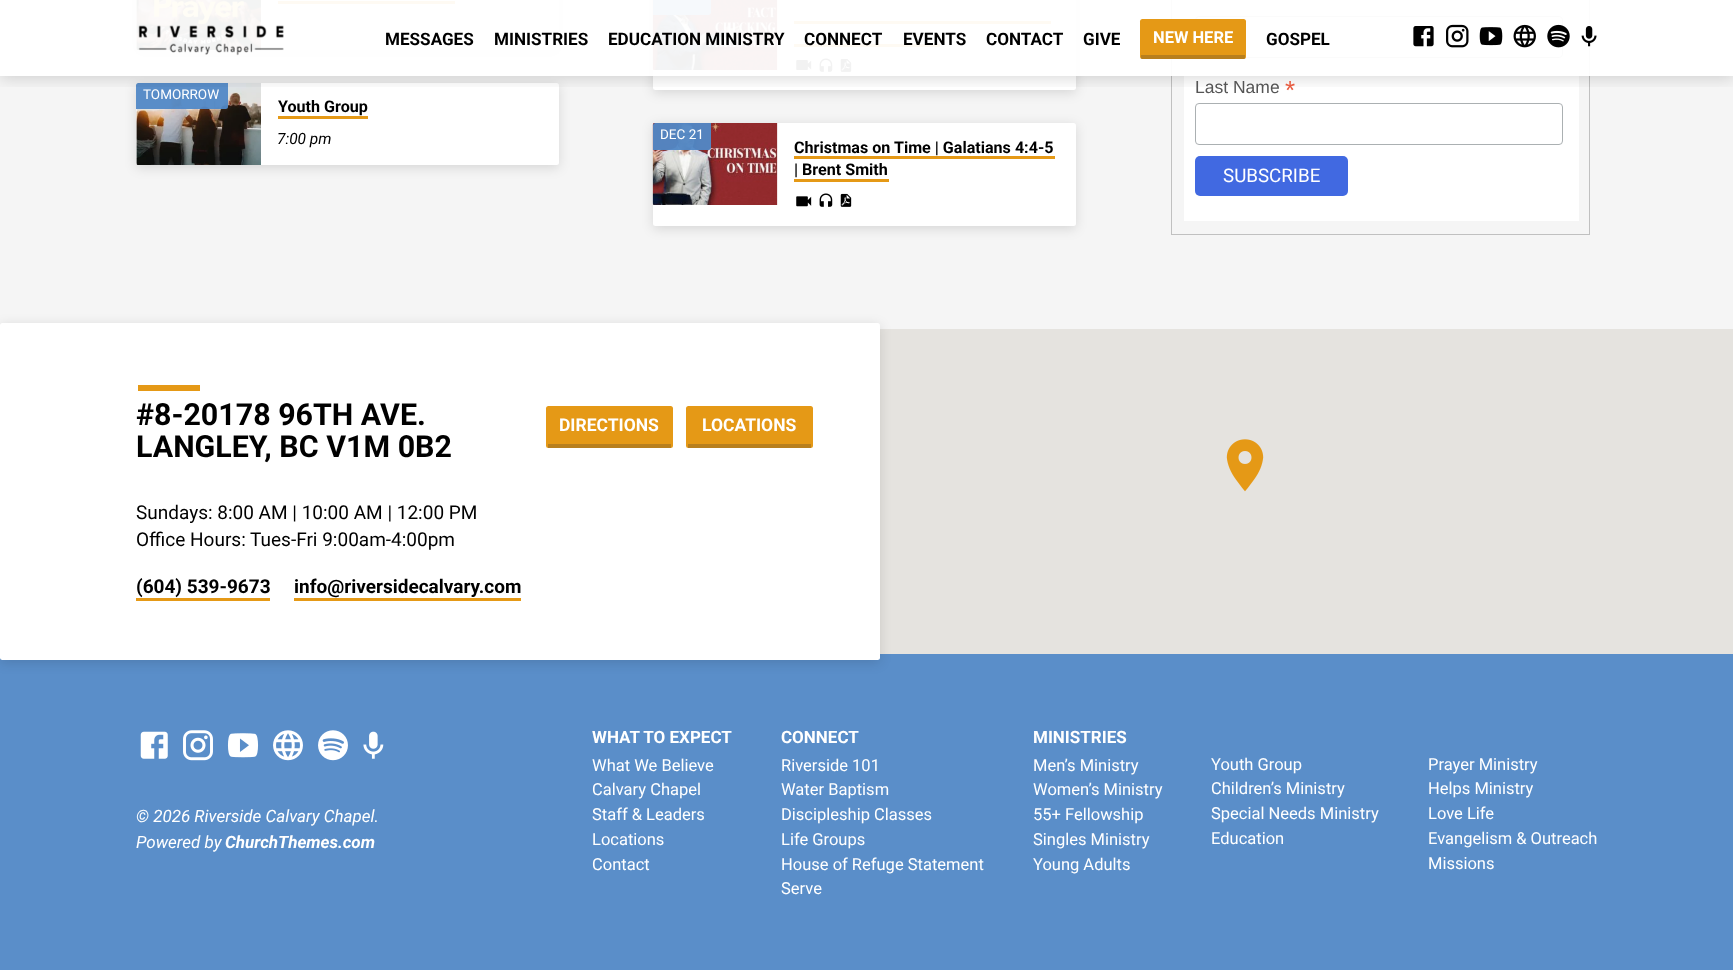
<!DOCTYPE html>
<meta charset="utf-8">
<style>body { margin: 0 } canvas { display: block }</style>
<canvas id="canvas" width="1733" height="970"></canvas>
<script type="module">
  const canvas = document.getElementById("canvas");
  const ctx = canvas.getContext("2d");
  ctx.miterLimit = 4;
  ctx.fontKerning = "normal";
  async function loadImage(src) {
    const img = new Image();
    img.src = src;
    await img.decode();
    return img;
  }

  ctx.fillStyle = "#5a8ec9";
  ctx.fillRect(0, 0, 1733, 970);
  ctx.fillStyle = "#f5f5f5";
  ctx.fillRect(0, 0, 1733, 329);
  ctx.fillStyle = "rgba(0, 0, 0, 0.12)";
  ctx.filter = "blur(6px)";
  ctx.beginPath();
  ctx.roundRect(136, -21, 423, 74, 2.5);
  ctx.fill();
  ctx.filter = "none";
  ctx.fillStyle = "#ffffff";
  ctx.beginPath();
  ctx.roundRect(136, -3, 423, 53, 2.5);
  ctx.fill();
  ctx.drawImage(await loadImage("img8.png"), 136, 0, 125, 50);
  ctx.fillStyle = "#e59916";
  ctx.fillRect(278, 1, 177, 3);
  ctx.fillStyle = "rgba(0, 0, 0, 0.12)";
  ctx.filter = "blur(6px)";
  ctx.beginPath();
  ctx.roundRect(136, 85, 423, 83, 2.5);
  ctx.fill();
  ctx.filter = "none";
  ctx.strokeStyle = "#c0c0c0";
  ctx.strokeRect(1171.5, -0.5, 418, 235);
  ctx.fillStyle = "#ffffff";
  ctx.fillRect(1184, 0, 395, 221);
  ctx.beginPath();
  ctx.roundRect(1195.5, 16.5, 367, 41, 3.5);
  ctx.strokeStyle = "#abb0b2";
  ctx.stroke();
  ctx.fillStyle = "rgba(0, 0, 0, 0.12)";
  ctx.filter = "blur(6px)";
  ctx.beginPath();
  ctx.roundRect(653, -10, 423, 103, 2.5);
  ctx.fill();
  ctx.filter = "none";
  ctx.fillStyle = "#ffffff";
  ctx.beginPath();
  ctx.roundRect(653, -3, 423, 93, 2.5);
  ctx.fill();
  ctx.drawImage(await loadImage("img10.png"), 652, 0, 126, 70);
  ctx.fillStyle = "rgba(81, 136, 198, 0.95)";
  ctx.beginPath();
  ctx.moveTo(655.5, -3);
  ctx.lineTo(711, -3);
  ctx.lineTo(711, 12.5);
  ctx.bezierCurveTo(711, 14, 710, 15, 708.5, 15);
  ctx.lineTo(653, 15);
  ctx.lineTo(653, -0.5);
  ctx.bezierCurveTo(653, -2, 654, -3, 655.5, -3);
  ctx.closePath();
  ctx.fill();
  ctx.fillStyle = "#e59916";
  ctx.fillRect(794, 21, 257, 3);
  ctx.fillRect(794, 44, 146, 3);
  ctx.drawImage(await loadImage("img11.png"), 796, 60, 16, 10);
  ctx.drawImage(await loadImage("img12.png"), 819, 58, 14, 14);
  ctx.drawImage(await loadImage("img13.png"), 840, 58, 12, 14);
  ctx.fillStyle = "rgba(255, 255, 255, 0.95)";
  ctx.fillRect(0, 0, 1733, 76);
  ctx.fillStyle = "#ffffff";
  ctx.beginPath();
  ctx.roundRect(136, 83, 423, 82, 2.5);
  ctx.fill();
  ctx.drawImage(await loadImage("img9.png"), 136, 83, 125, 82);
  ctx.fillStyle = "rgba(81, 136, 198, 0.95)";
  ctx.beginPath();
  ctx.roundRect(136, 83, 92, 26, [2.5, 0, 2.5, 0]);
  ctx.fill();
  ctx.save();
  ctx.beginPath();
  ctx.rect(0, 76, 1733, 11);
  ctx.clip();
  ctx.fillStyle = "rgba(0, 0, 0, 0.14)";
  ctx.filter = "blur(7.5px)";
  ctx.beginPath();
  ctx.rect(0, 3, 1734, 76);
  ctx.fill();
  ctx.filter = "none";
  ctx.restore();
  ctx.drawImage(await loadImage("img1.png"), 138, 25, 146, 31);
  ctx.font = "bold 17.1px Roboto";
  ctx.fillStyle = "#000000";
  ctx.fillText("MESSAGES", 385, 45);
  ctx.fillText("MINISTRIES", 494, 45);
  ctx.fillText("EDUCATION MINISTRY", 608, 45);
  ctx.fillText("CONNECT", 804, 45);
  ctx.fillText("EVENTS", 903, 45);
  ctx.fillText("CONTACT", 986, 45);
  ctx.fillText("GIVE", 1083, 45);
  ctx.fillStyle = "#e59916";
  ctx.beginPath();
  ctx.roundRect(1140, 19, 106, 40, 2.5);
  ctx.fill();
  ctx.fillStyle = "rgba(50, 50, 50, 0.25)";
  ctx.fillRect(1141, 55, 104, 4);
  ctx.font = "bold 16.5px Roboto";
  ctx.fillStyle = "#ffffff";
  ctx.fillText("NEW HERE", 1153, 43);
  ctx.font = "bold 17.1px Roboto";
  ctx.fillStyle = "#000000";
  ctx.fillText("GOSPEL", 1266, 45);
  ctx.drawImage(await loadImage("img2.png"), 1413, 26, 21, 21);
  ctx.drawImage(await loadImage("img3.png"), 1446, 24, 23, 24);
  ctx.drawImage(await loadImage("img4.png"), 1479, 27, 24, 19);
  ctx.drawImage(await loadImage("img5.png"), 1513, 24, 23, 24);
  ctx.drawImage(await loadImage("img6.png"), 1547, 24, 23, 24);
  ctx.drawImage(await loadImage("img7.png"), 1581, 26, 16, 21);
  ctx.font = "13.5px Roboto";
  ctx.fillStyle = "#ffffff";
  ctx.fillText("TOMORROW", 143, 99);
  ctx.font = "bold 16.1px Roboto";
  ctx.fillStyle = "#000000";
  ctx.fillText("Youth Group", 278, 112);
  ctx.fillStyle = "#e59916";
  ctx.fillRect(278, 116, 90, 3);
  ctx.font = "italic 15.5px Roboto";
  ctx.fillStyle = "#000000";
  ctx.fillText("7:00 pm", 277, 144);
  ctx.font = "17.5px Liberation Sans";
  ctx.fillStyle = "#555555";
  ctx.fillText("Last Name", 1195, 93);
  ctx.font = "26px Liberation Sans";
  ctx.fillStyle = "#e85c41";
  ctx.fillText("*", 1285, 99);
  ctx.beginPath();
  ctx.roundRect(1195.5, 103.5, 367, 41, 3.5);
  ctx.stroke();
  ctx.fillStyle = "#4169e1";
  ctx.beginPath();
  ctx.roundRect(1195, 156, 153, 40, 5);
  ctx.fill();
  ctx.font = "18.75px Roboto";
  ctx.fillStyle = "#ffffff";
  ctx.fillText("SUBSCRIBE", 1223, 182);
  ctx.fillStyle = "rgba(0, 0, 0, 0.12)";
  ctx.filter = "blur(6px)";
  ctx.beginPath();
  ctx.roundRect(653, 125, 423, 104, 2.5);
  ctx.fill();
  ctx.filter = "none";
  ctx.fillStyle = "#ffffff";
  ctx.beginPath();
  ctx.roundRect(653, 123, 423, 103, 2.5);
  ctx.fill();
  ctx.drawImage(await loadImage("img14.png"), 652, 123, 126, 82);
  ctx.fillStyle = "rgba(81, 136, 198, 0.95)";
  ctx.beginPath();
  ctx.roundRect(653, 123, 58, 27, [2.5, 0, 2.5, 0]);
  ctx.fill();
  ctx.font = "13.5px Roboto";
  ctx.fillStyle = "#ffffff";
  ctx.fillText("DEC 21", 660, 139);
  ctx.font = "bold 16.1px Roboto";
  ctx.fillStyle = "#000000";
  ctx.fillText("Christmas on Time | Galatians 4:4-5", 794, 153);
  ctx.fillStyle = "#e59916";
  ctx.fillRect(794, 156, 261, 3);
  ctx.fillStyle = "#000000";
  ctx.fillText("| Brent Smith", 794, 175);
  ctx.fillStyle = "#e59916";
  ctx.fillRect(794, 179, 95, 3);
  ctx.drawImage(await loadImage("img15.png"), 796, 196, 16, 11);
  ctx.drawImage(await loadImage("img12.png"), 819, 193, 14, 14);
  ctx.drawImage(await loadImage("img13.png"), 840, 193, 12, 14);
  ctx.fillStyle = "#e5e3df";
  ctx.fillRect(880, 329, 853, 325);
  ctx.fillStyle = "rgba(0, 0, 0, 0.12)";
  ctx.filter = "blur(6px)";
  ctx.beginPath();
  ctx.roundRect(0, 325, 880, 338, 2.5);
  ctx.fill();
  ctx.filter = "none";
  ctx.fillStyle = "#ffffff";
  ctx.beginPath();
  ctx.roundRect(0, 323, 880, 337, 2.5);
  ctx.fill();
  ctx.drawImage(await loadImage("img16.png"), 1226, 439, 38, 53);
  ctx.fillStyle = "#e59916";
  ctx.fillRect(138, 385, 62, 6);
  ctx.font = "bold 30.4px Roboto";
  ctx.fillStyle = "#000000";
  ctx.fillText("#8-20178 96TH AVE.", 136, 425);
  ctx.fillText("LANGLEY, BC V1M 0B2", 136, 457);
  ctx.fillStyle = "#e59916";
  ctx.beginPath();
  ctx.roundRect(546, 406, 127, 42, 2.5);
  ctx.fill();
  ctx.fillStyle = "rgba(50, 50, 50, 0.25)";
  ctx.fillRect(548, 444, 123, 4);
  ctx.font = "bold 17.5px Roboto";
  ctx.fillStyle = "#ffffff";
  ctx.fillText("DIRECTIONS", 559, 431);
  ctx.fillStyle = "#e59916";
  ctx.beginPath();
  ctx.roundRect(686, 406, 127, 42, 2.5);
  ctx.fill();
  ctx.fillStyle = "rgba(50, 50, 50, 0.25)";
  ctx.fillRect(688, 444, 123, 4);
  ctx.fillStyle = "#ffffff";
  ctx.fillText("LOCATIONS", 702, 431);
  ctx.font = "19px Roboto";
  ctx.fillStyle = "#000000";
  ctx.fillText("Sundays: 8:00 AM | 10:00 AM | 12:00 PM", 136, 519);
  ctx.fillText("Office Hours: Tues-Fri 9:00am-4:00pm", 136, 546);
  ctx.font = "bold 19px Roboto";
  ctx.fillText("(604) 539-9673", 136, 593);
  ctx.fillStyle = "#e59916";
  ctx.fillRect(136, 598, 134, 3);
  ctx.fillStyle = "#000000";
  ctx.fillText("info@riversidecalvary.com", 294, 593);
  ctx.fillStyle = "#e59916";
  ctx.fillRect(294, 598, 227, 3);
  ctx.drawImage(await loadImage("img17.png"), 140, 731, 28, 28);
  ctx.drawImage(await loadImage("img18.png"), 183, 730, 30, 31);
  ctx.drawImage(await loadImage("img19.png"), 227, 733, 32, 25);
  ctx.drawImage(await loadImage("img20.png"), 273, 730, 30, 31);
  ctx.drawImage(await loadImage("img21.png"), 318, 730, 30, 31);
  ctx.drawImage(await loadImage("img22.png"), 363, 731, 21, 28);
  ctx.font = "italic 17px Roboto";
  ctx.fillStyle = "#ffffff";
  ctx.fillText("© 2026 Riverside Calvary Chapel.", 136, 822);
  ctx.fillText("Powered by", 136, 848);
  ctx.font = "italic bold 17px Roboto";
  ctx.fillText("ChurchThemes.com", 225, 848);
  ctx.font = "bold 17px Roboto";
  ctx.fillText("WHAT TO EXPECT", 592, 743);
  ctx.font = "16.5px Roboto";
  ctx.fillText("What We Believe", 592, 771);
  ctx.fillText("Calvary Chapel", 592, 795);
  ctx.fillText("Staff & Leaders", 592, 820);
  ctx.fillText("Locations", 592, 845);
  ctx.fillText("Contact", 592, 870);
  ctx.font = "bold 17px Roboto";
  ctx.fillText("CONNECT", 781, 743);
  ctx.font = "16.5px Roboto";
  ctx.fillText("Riverside 101", 781, 771);
  ctx.fillText("Water Baptism", 781, 795);
  ctx.fillText("Discipleship Classes", 781, 820);
  ctx.fillText("Life Groups", 781, 845);
  ctx.fillText("House of Refuge Statement", 781, 870);
  ctx.fillText("Serve", 781, 894);
  ctx.font = "bold 17px Roboto";
  ctx.fillText("MINISTRIES", 1033, 743);
  ctx.font = "16.5px Roboto";
  ctx.fillText("Men’s Ministry", 1033, 771);
  ctx.fillText("Women’s Ministry", 1033, 795);
  ctx.fillText("55+ Fellowship", 1033, 820);
  ctx.fillText("Singles Ministry", 1033, 845);
  ctx.fillText("Young Adults", 1033, 870);
  ctx.fillText("Youth Group", 1211, 770);
  ctx.fillText("Children’s Ministry", 1211, 794);
  ctx.fillText("Special Needs Ministry", 1211, 819);
  ctx.fillText("Education", 1211, 844);
  ctx.fillText("Prayer Ministry", 1428, 770);
  ctx.fillText("Helps Ministry", 1428, 794);
  ctx.fillText("Love Life", 1428, 819);
  ctx.fillText("Evangelism & Outreach", 1428, 844);
  ctx.fillText("Missions", 1428, 869);
</script>
